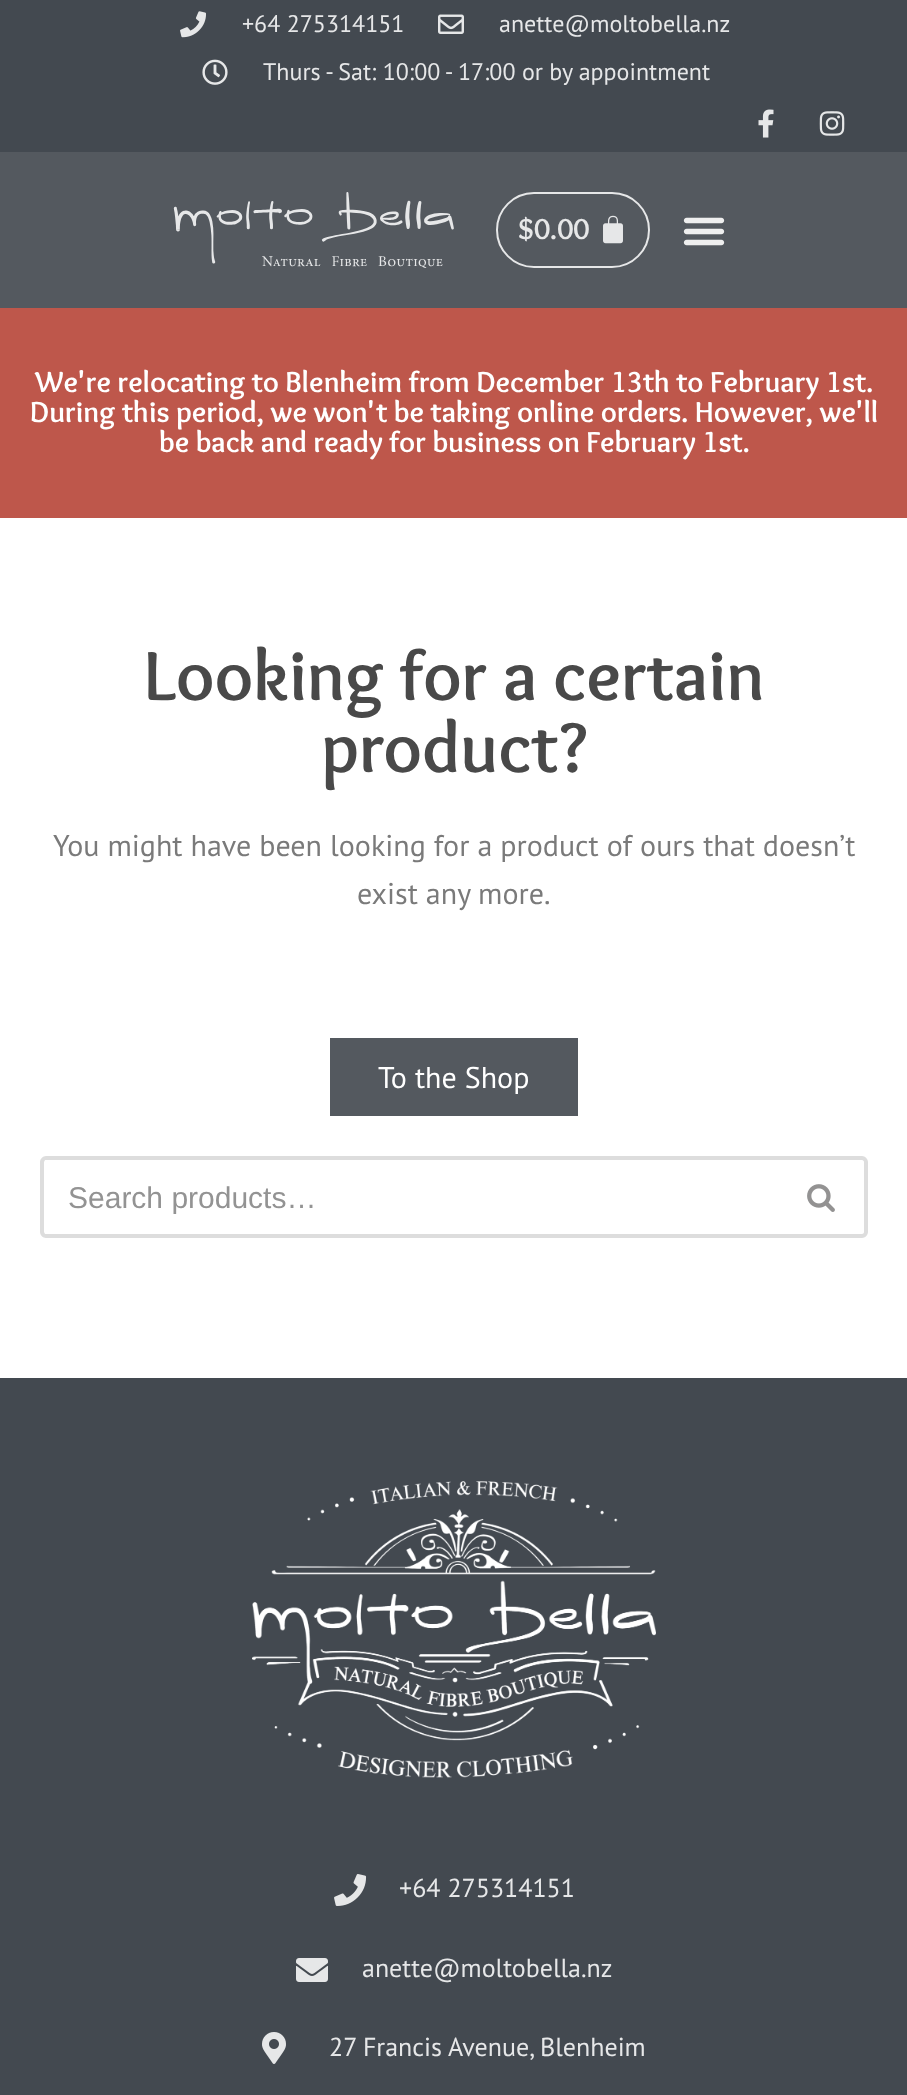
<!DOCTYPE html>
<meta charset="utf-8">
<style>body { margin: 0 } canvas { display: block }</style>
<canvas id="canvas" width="907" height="2095"></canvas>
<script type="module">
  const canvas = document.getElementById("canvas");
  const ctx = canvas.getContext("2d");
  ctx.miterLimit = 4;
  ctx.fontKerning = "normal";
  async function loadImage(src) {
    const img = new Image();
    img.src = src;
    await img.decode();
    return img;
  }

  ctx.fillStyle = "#ffffff";
  ctx.fillRect(0, 0, 907, 2095);
  ctx.fillStyle = "#434950";
  ctx.fillRect(0, 0, 907, 152);
  ctx.drawImage(await loadImage("img1.png"), 180, 11, 26, 27);
  ctx.font = "24px PT Sans";
  ctx.fillStyle = "#e6e7e8";
  ctx.fillText("+64 275314151", 242, 32);
  ctx.drawImage(await loadImage("img2.png"), 438, 14, 26, 20);
  ctx.fillText("anette@moltobella.nz", 499, 32);
  ctx.drawImage(await loadImage("img3.png"), 202, 59, 26, 26);
  ctx.fillText("Thurs - Sat: 10:00 - 17:00 or by appointment", 263, 80);
  ctx.drawImage(await loadImage("img4.png"), 758, 109, 16, 29);
  ctx.drawImage(await loadImage("img5.png"), 819, 111, 26, 25);
  ctx.fillStyle = "#54595f";
  ctx.fillRect(0, 152, 907, 156);
  ctx.drawImage(await loadImage("img6.png"), 173, 192, 281, 76);
  ctx.beginPath();
  ctx.roundRect(497, 193, 152, 74, 37);
  ctx.strokeStyle = "#e6e7e8";
  ctx.lineWidth = 2;
  ctx.stroke();
  ctx.font = "bold 30px Overlock";
  ctx.fillStyle = "#e6e7e8";
  ctx.fillText("$0.00", 518, 239);
  ctx.drawImage(await loadImage("img7.png"), 603, 215, 20, 29);
  ctx.drawImage(await loadImage("img8.png"), 683, 217, 42, 29);
  ctx.fillStyle = "#be574b";
  ctx.fillRect(0, 308, 907, 210);
  ctx.fillStyle = "#ffffff";
  ctx.fillText("We're relocating to Blenheim from December 13th to February 1st.", 35, 392);
  ctx.fillText("During this period, we won't be taking online orders. However, we'll", 30, 422);
  ctx.fillText("be back and ready for business on February 1st.", 159, 452);
  ctx.font = "bold 72px Overlock";
  ctx.fillStyle = "#494949";
  ctx.fillText("Looking for a certain", 144, 700);
  ctx.fillText("product?", 321, 772);
  ctx.font = "30px PT Sans";
  ctx.fillStyle = "#7a7a7a";
  ctx.fillText("You might have been looking for a product of ours that doesn’t", 53, 856);
  ctx.fillText("exist any more.", 357, 904);
  ctx.fillStyle = "#54595f";
  ctx.fillRect(330, 1038, 248, 78);
  ctx.fillStyle = "#ffffff";
  ctx.fillText("To the Shop", 378, 1088);
  ctx.fillStyle = "#dddddd";
  ctx.beginPath();
  ctx.moveTo(46, 1156);
  ctx.lineTo(778, 1156);
  ctx.lineTo(778, 1238);
  ctx.lineTo(46, 1238);
  ctx.bezierCurveTo(43, 1238, 40, 1235, 40, 1232);
  ctx.lineTo(40, 1162);
  ctx.bezierCurveTo(40, 1159, 43, 1156, 46, 1156);
  ctx.closePath();
  ctx.moveTo(46, 1160);
  ctx.lineTo(778, 1160);
  ctx.lineTo(778, 1234);
  ctx.lineTo(46, 1234);
  ctx.lineTo(45, 1234);
  ctx.lineTo(44, 1232);
  ctx.lineTo(44, 1162);
  ctx.lineTo(45, 1160);
  ctx.closePath();
  ctx.fill("evenodd");
  ctx.save();
  ctx.beginPath();
  ctx.rect(68, 1180, 658, 34);
  ctx.clip();
  ctx.font = "30px Liberation Sans";
  ctx.fillStyle = "#939393";
  ctx.fillText("Search products…", 68, 1208);
  ctx.restore();
  ctx.beginPath();
  ctx.moveTo(778, 1156);
  ctx.lineTo(862, 1156);
  ctx.bezierCurveTo(865, 1156, 868, 1159, 868, 1162);
  ctx.lineTo(868, 1232);
  ctx.bezierCurveTo(868, 1235, 865, 1238, 862, 1238);
  ctx.lineTo(778, 1238);
  ctx.closePath();
  ctx.moveTo(778, 1160);
  ctx.lineTo(862, 1160);
  ctx.bezierCurveTo(863, 1160, 864, 1161, 864, 1162);
  ctx.lineTo(864, 1232);
  ctx.bezierCurveTo(864, 1233, 863, 1234, 862, 1234);
  ctx.lineTo(778, 1234);
  ctx.closePath();
  ctx.fill("evenodd");
  ctx.drawImage(await loadImage("img9.png"), 807, 1184, 28, 28);
  ctx.fillStyle = "#434950";
  ctx.fillRect(0, 1378, 907, 717);
  ctx.drawImage(await loadImage("img10.png"), 252, 1481, 404, 297);
  ctx.drawImage(await loadImage("img11.png"), 334, 1874, 33, 32);
  ctx.font = "26px PT Sans";
  ctx.fillStyle = "#e6e7e8";
  ctx.fillText("+64 275314151", 399, 1897);
  ctx.drawImage(await loadImage("img12.png"), 296, 1958, 32, 24);
  ctx.fillText("anette@moltobella.nz", 362, 1977);
  ctx.drawImage(await loadImage("img13.png"), 262, 2032, 24, 32);
  ctx.fillText("27 Francis Avenue, Blenheim", 329, 2056);
</script>
